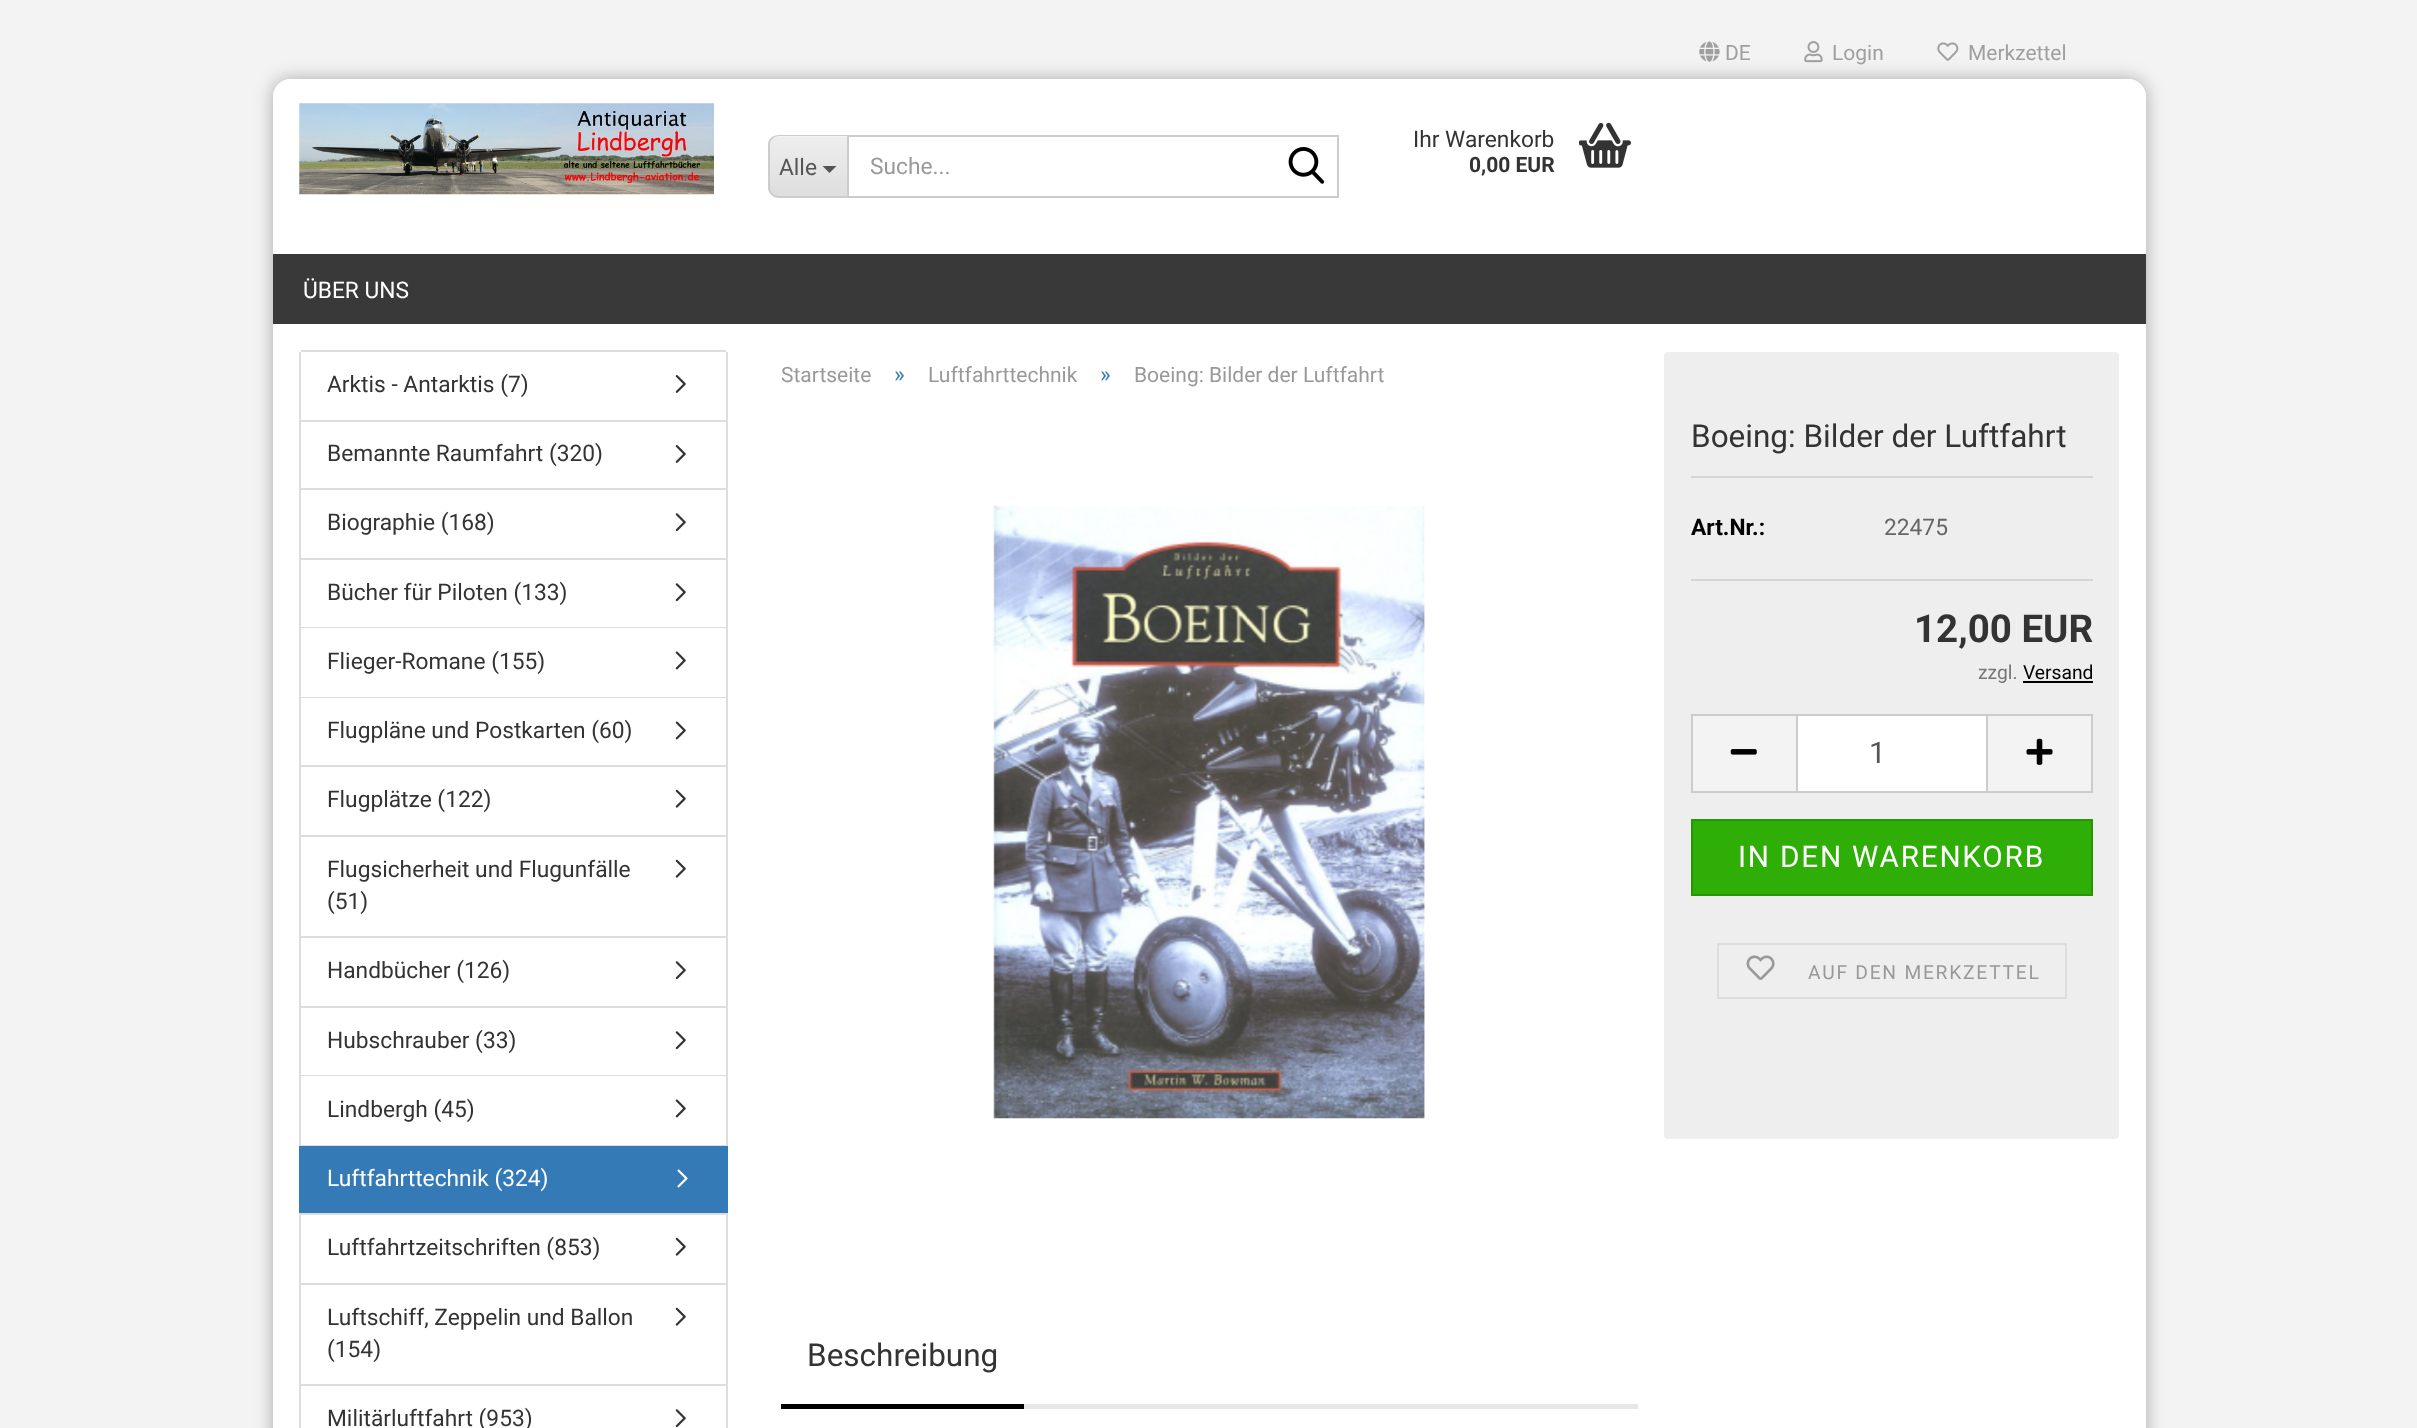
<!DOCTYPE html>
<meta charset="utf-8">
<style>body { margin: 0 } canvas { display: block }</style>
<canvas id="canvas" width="2417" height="1428"></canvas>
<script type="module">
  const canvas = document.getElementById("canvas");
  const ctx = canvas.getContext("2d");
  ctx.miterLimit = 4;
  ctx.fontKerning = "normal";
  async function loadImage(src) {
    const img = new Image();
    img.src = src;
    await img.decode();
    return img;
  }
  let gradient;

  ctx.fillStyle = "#f3f3f3";
  ctx.fillRect(0, 0, 2417, 1428);
  ctx.fillStyle = "rgba(0, 0, 0, 0.3)";
  ctx.filter = "blur(9px)";
  ctx.beginPath();
  ctx.roundRect(273, 79, 1873, 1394, 18);
  ctx.fill();
  ctx.filter = "none";
  ctx.fillStyle = "#ffffff";
  ctx.beginPath();
  ctx.roundRect(273, 79, 1873, 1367, 18);
  ctx.fill();
  ctx.beginPath();
  ctx.roundRect(273, 79, 1873, 245, [18, 18, 4, 4]);
  ctx.fill();
  ctx.drawImage(await loadImage("img1.png"), 1699, 41, 21, 21);
  ctx.font = "21px Roboto";
  ctx.fillStyle = "#9f9f9f";
  ctx.fillText("DE", 1725, 60);
  ctx.drawImage(await loadImage("img2.png"), 1804, 41, 19, 22);
  ctx.fillText("Login", 1832, 60);
  ctx.drawImage(await loadImage("img3.png"), 1937, 42, 22, 19);
  ctx.fillText("Merkzettel", 1968, 60);
  ctx.drawImage(await loadImage("img4.png"), 299, 103, 415, 92);
  ctx.fillStyle = "#f3f3f3";
  ctx.beginPath();
  ctx.roundRect(768, 135, 79, 63, [11, 0, 0, 11]);
  ctx.fill();
  ctx.save();
  ctx.beginPath();
  ctx.roundRect(768, 135, 79, 63, [11, 0, 0, 11]);
  ctx.clip();
  gradient = ctx.createLinearGradient(809, 137, 809, 196);
  gradient.addColorStop(0, "#eeeeee");
  gradient.addColorStop(1, "#dedede");
  ctx.fillStyle = gradient;
  ctx.fillRect(768, 137, 79, 59);
  ctx.restore();
  ctx.fillStyle = "#cccccc";
  ctx.beginPath();
  ctx.moveTo(779, 135);
  ctx.lineTo(847, 135);
  ctx.lineTo(847, 198);
  ctx.lineTo(779, 198);
  ctx.bezierCurveTo(773, 198, 768, 193, 768, 187);
  ctx.lineTo(768, 145);
  ctx.bezierCurveTo(768, 139, 773, 135, 779, 135);
  ctx.closePath();
  ctx.moveTo(779, 136);
  ctx.lineTo(847, 136);
  ctx.lineTo(847, 196);
  ctx.lineTo(779, 196);
  ctx.bezierCurveTo(774, 196, 770, 192, 770, 187);
  ctx.lineTo(770, 145);
  ctx.bezierCurveTo(770, 140, 774, 136, 779, 136);
  ctx.closePath();
  ctx.fill("evenodd");
  ctx.font = "22.75px Roboto";
  ctx.fillStyle = "#555555";
  ctx.fillText("Alle", 779, 175);
  ctx.beginPath();
  ctx.moveTo(822.5, 166);
  ctx.lineTo(836.5, 166);
  ctx.lineTo(829.5, 173);
  ctx.closePath();
  ctx.fill();
  ctx.strokeStyle = "#cccccc";
  ctx.lineWidth = 2;
  ctx.strokeRect(848, 136, 490, 61);
  ctx.fillStyle = "#999999";
  ctx.fillText("Suche...", 870, 174);
  ctx.drawImage(await loadImage("img5.png"), 1288, 147, 37, 37);
  ctx.fillStyle = "#333333";
  ctx.fillText("Ihr Warenkorb", 1413, 147);
  ctx.font = "bold 21px Roboto";
  ctx.fillText("0,00 EUR", 1469, 172);
  ctx.drawImage(await loadImage("img6.png"), 1579, 122, 52, 46);
  ctx.fillStyle = "#393939";
  ctx.fillRect(273, 254, 1873, 70);
  ctx.font = "22.75px Roboto";
  ctx.fillStyle = "#ffffff";
  ctx.fillText("ÜBER UNS", 303, 298);
  ctx.fillStyle = "#dddddd";
  ctx.fillRect(301, 350, 425, 2);
  ctx.fillRect(726, 352, 2, 1076);
  ctx.fillRect(299, 352, 2, 1076);
  ctx.fillRect(301, 420, 425, 2);
  ctx.fillStyle = "#333333";
  ctx.fillText("Arktis - Antarktis (7)", 327, 392);
  ctx.drawImage(await loadImage("img7.png"), 675, 375, 11, 18);
  ctx.fillStyle = "#dddddd";
  ctx.fillRect(301, 488, 425, 2);
  ctx.fillStyle = "#333333";
  ctx.fillText("Bemannte Raumfahrt (320)", 327, 461);
  ctx.drawImage(await loadImage("img7.png"), 675, 445, 11, 18);
  ctx.fillStyle = "#dddddd";
  ctx.fillRect(301, 558, 425, 2);
  ctx.fillStyle = "#333333";
  ctx.fillText("Biographie (168)", 327, 530);
  ctx.drawImage(await loadImage("img8.png"), 675, 513, 11, 19);
  ctx.fillStyle = "#dddddd";
  ctx.fillRect(301, 627, 425, 1);
  ctx.fillStyle = "#333333";
  ctx.fillText("Bücher für Piloten (133)", 327, 600);
  ctx.drawImage(await loadImage("img8.png"), 675, 583, 11, 19);
  ctx.fillStyle = "#dddddd";
  ctx.fillRect(301, 697, 425, 1);
  ctx.fillStyle = "#333333";
  ctx.fillText("Flieger-Romane (155)", 327, 669);
  ctx.drawImage(await loadImage("img9.png"), 675, 651, 11, 19);
  ctx.fillStyle = "#dddddd";
  ctx.fillRect(301, 765, 425, 2);
  ctx.fillStyle = "#333333";
  ctx.fillText("Flugpläne und Postkarten (60)", 327, 738);
  ctx.drawImage(await loadImage("img9.png"), 675, 721, 11, 19);
  ctx.fillStyle = "#dddddd";
  ctx.fillRect(301, 835, 425, 2);
  ctx.fillStyle = "#333333";
  ctx.fillText("Flugplätze (122)", 327, 807);
  ctx.drawImage(await loadImage("img10.png"), 675, 789, 11, 19);
  ctx.fillStyle = "#dddddd";
  ctx.fillRect(301, 936, 425, 2);
  ctx.fillStyle = "#333333";
  ctx.fillText("Flugsicherheit und Flugunfälle", 327, 877);
  ctx.drawImage(await loadImage("img10.png"), 675, 859, 11, 19);
  ctx.fillText("(51)", 327, 909);
  ctx.fillStyle = "#dddddd";
  ctx.fillRect(301, 1006, 425, 2);
  ctx.fillStyle = "#333333";
  ctx.fillText("Handbücher (126)", 327, 978);
  ctx.drawImage(await loadImage("img8.png"), 675, 961, 11, 19);
  ctx.fillStyle = "#dddddd";
  ctx.fillRect(301, 1075, 425, 1);
  ctx.fillStyle = "#333333";
  ctx.fillText("Hubschrauber (33)", 327, 1048);
  ctx.drawImage(await loadImage("img8.png"), 675, 1031, 11, 19);
  ctx.fillStyle = "#dddddd";
  ctx.fillRect(301, 1145, 425, 1);
  ctx.fillStyle = "#333333";
  ctx.fillText("Lindbergh (45)", 327, 1117);
  ctx.drawImage(await loadImage("img9.png"), 675, 1099, 11, 19);
  ctx.fillStyle = "#dddddd";
  ctx.fillRect(301, 1213, 425, 2);
  ctx.fillStyle = "#337ab7";
  ctx.fillRect(299, 1146, 429, 67);
  ctx.fillStyle = "#ffffff";
  ctx.fillText("Luftfahrttechnik (324)", 327, 1186);
  ctx.drawImage(await loadImage("img11.png"), 677, 1169, 11, 19);
  ctx.fillStyle = "#dddddd";
  ctx.fillRect(301, 1283, 425, 2);
  ctx.fillStyle = "#333333";
  ctx.fillText("Luftfahrtzeitschriften (853)", 327, 1255);
  ctx.drawImage(await loadImage("img10.png"), 675, 1237, 11, 19);
  ctx.fillStyle = "#dddddd";
  ctx.fillRect(301, 1384, 425, 2);
  ctx.fillStyle = "#333333";
  ctx.fillText("Luftschiff, Zeppelin und Ballon", 327, 1325);
  ctx.drawImage(await loadImage("img10.png"), 675, 1307, 11, 19);
  ctx.fillText("(154)", 327, 1357);
  ctx.fillText("Militärluftfahrt (953)", 327, 1426);
  ctx.drawImage(await loadImage("img8.png"), 675, 1409, 11, 19);
  ctx.font = "21px Roboto";
  ctx.fillStyle = "#999999";
  ctx.fillText("Startseite", 781, 382);
  ctx.font = "22.75px Roboto";
  ctx.fillStyle = "#337ab7";
  ctx.fillText("»", 894, 382);
  ctx.font = "21px Roboto";
  ctx.fillStyle = "#999999";
  ctx.fillText("Luftfahrttechnik", 928, 382);
  ctx.font = "22.75px Roboto";
  ctx.fillStyle = "#337ab7";
  ctx.fillText("»", 1100, 382);
  ctx.font = "21px Roboto";
  ctx.fillStyle = "#999999";
  ctx.fillText("Boeing: Bilder der Luftfahrt", 1134, 382);
  ctx.drawImage(await loadImage("img12.png"), 993, 505, 432, 614);
  ctx.fillStyle = "#eeeeee";
  ctx.beginPath();
  ctx.roundRect(1664, 352, 455, 787, 4);
  ctx.fill();
  ctx.fillStyle = "#d5d5d5";
  ctx.fillRect(1691, 476, 402, 2);
  ctx.font = "31.5px Roboto";
  ctx.fillStyle = "#333333";
  ctx.fillText("Boeing: Bilder der Luftfahrt", 1691, 447);
  ctx.fillStyle = "#d5d5d5";
  ctx.fillRect(1691, 579, 402, 2);
  ctx.font = "bold 22.75px Roboto";
  ctx.fillStyle = "#000000";
  ctx.fillText("Art.Nr.:", 1691, 535);
  ctx.font = "22.75px Roboto";
  ctx.fillStyle = "#666666";
  ctx.fillText("22475", 1884, 535);
  ctx.font = "bold 38.5px Roboto";
  ctx.fillStyle = "#333333";
  ctx.fillText("12,00 EUR", 1914, 642);
  ctx.font = "19.25px Roboto";
  ctx.fillStyle = "#777777";
  ctx.fillText("zzgl.", 1978, 679);
  ctx.fillStyle = "#000000";
  ctx.fillText("Versand", 2023, 679);
  ctx.fillRect(2023, 681, 70, 2);
  ctx.fillStyle = "#f3f3f3";
  ctx.fillRect(1693, 716, 103, 75);
  ctx.fillStyle = "#cccccc";
  ctx.fillRect(1691, 714, 105, 2);
  ctx.fillRect(1691, 791, 105, 2);
  ctx.fillRect(1691, 714, 2, 79);
  ctx.drawImage(await loadImage("img13.png"), 1730, 749, 27, 6);
  ctx.fillStyle = "#ffffff";
  ctx.beginPath();
  ctx.rect(1797, 715, 190, 77);
  ctx.fill();
  ctx.stroke();
  ctx.font = "29.75px Roboto";
  ctx.fillStyle = "#555555";
  ctx.fillText("1", 1869, 763);
  ctx.fillStyle = "#f3f3f3";
  ctx.fillRect(1988, 716, 103, 75);
  ctx.fillStyle = "#cccccc";
  ctx.fillRect(1988, 714, 105, 2);
  ctx.fillRect(2091, 714, 2, 79);
  ctx.fillRect(1988, 791, 105, 2);
  ctx.drawImage(await loadImage("img14.png"), 2026, 738, 27, 27);
  ctx.fillStyle = "#2eae06";
  ctx.beginPath();
  ctx.rect(1692, 820, 400, 75);
  ctx.fill();
  ctx.strokeStyle = "#279505";
  ctx.stroke();
  ctx.letterSpacing = "1.75px";
  ctx.fillStyle = "#ffffff";
  ctx.fillText("IN DEN WARENKORB", 1738, 867);
  ctx.strokeStyle = "#dddddd";
  ctx.strokeRect(1718, 944, 348, 54);
  ctx.drawImage(await loadImage("img15.png"), 1746, 955, 29, 25);
  ctx.font = "19.25px Roboto";
  ctx.fillStyle = "#999999";
  ctx.fillText("AUF DEN MERKZETTEL", 1808, 979);
  ctx.fillStyle = "#e7e7e7";
  ctx.fillRect(1024, 1404, 614, 5);
  ctx.fillStyle = "#000000";
  ctx.fillRect(781, 1404, 243, 5);
  ctx.letterSpacing = "0px";
  ctx.font = "31.5px Roboto";
  ctx.fillStyle = "#333333";
  ctx.fillText("Beschreibung", 807, 1366);
</script>
